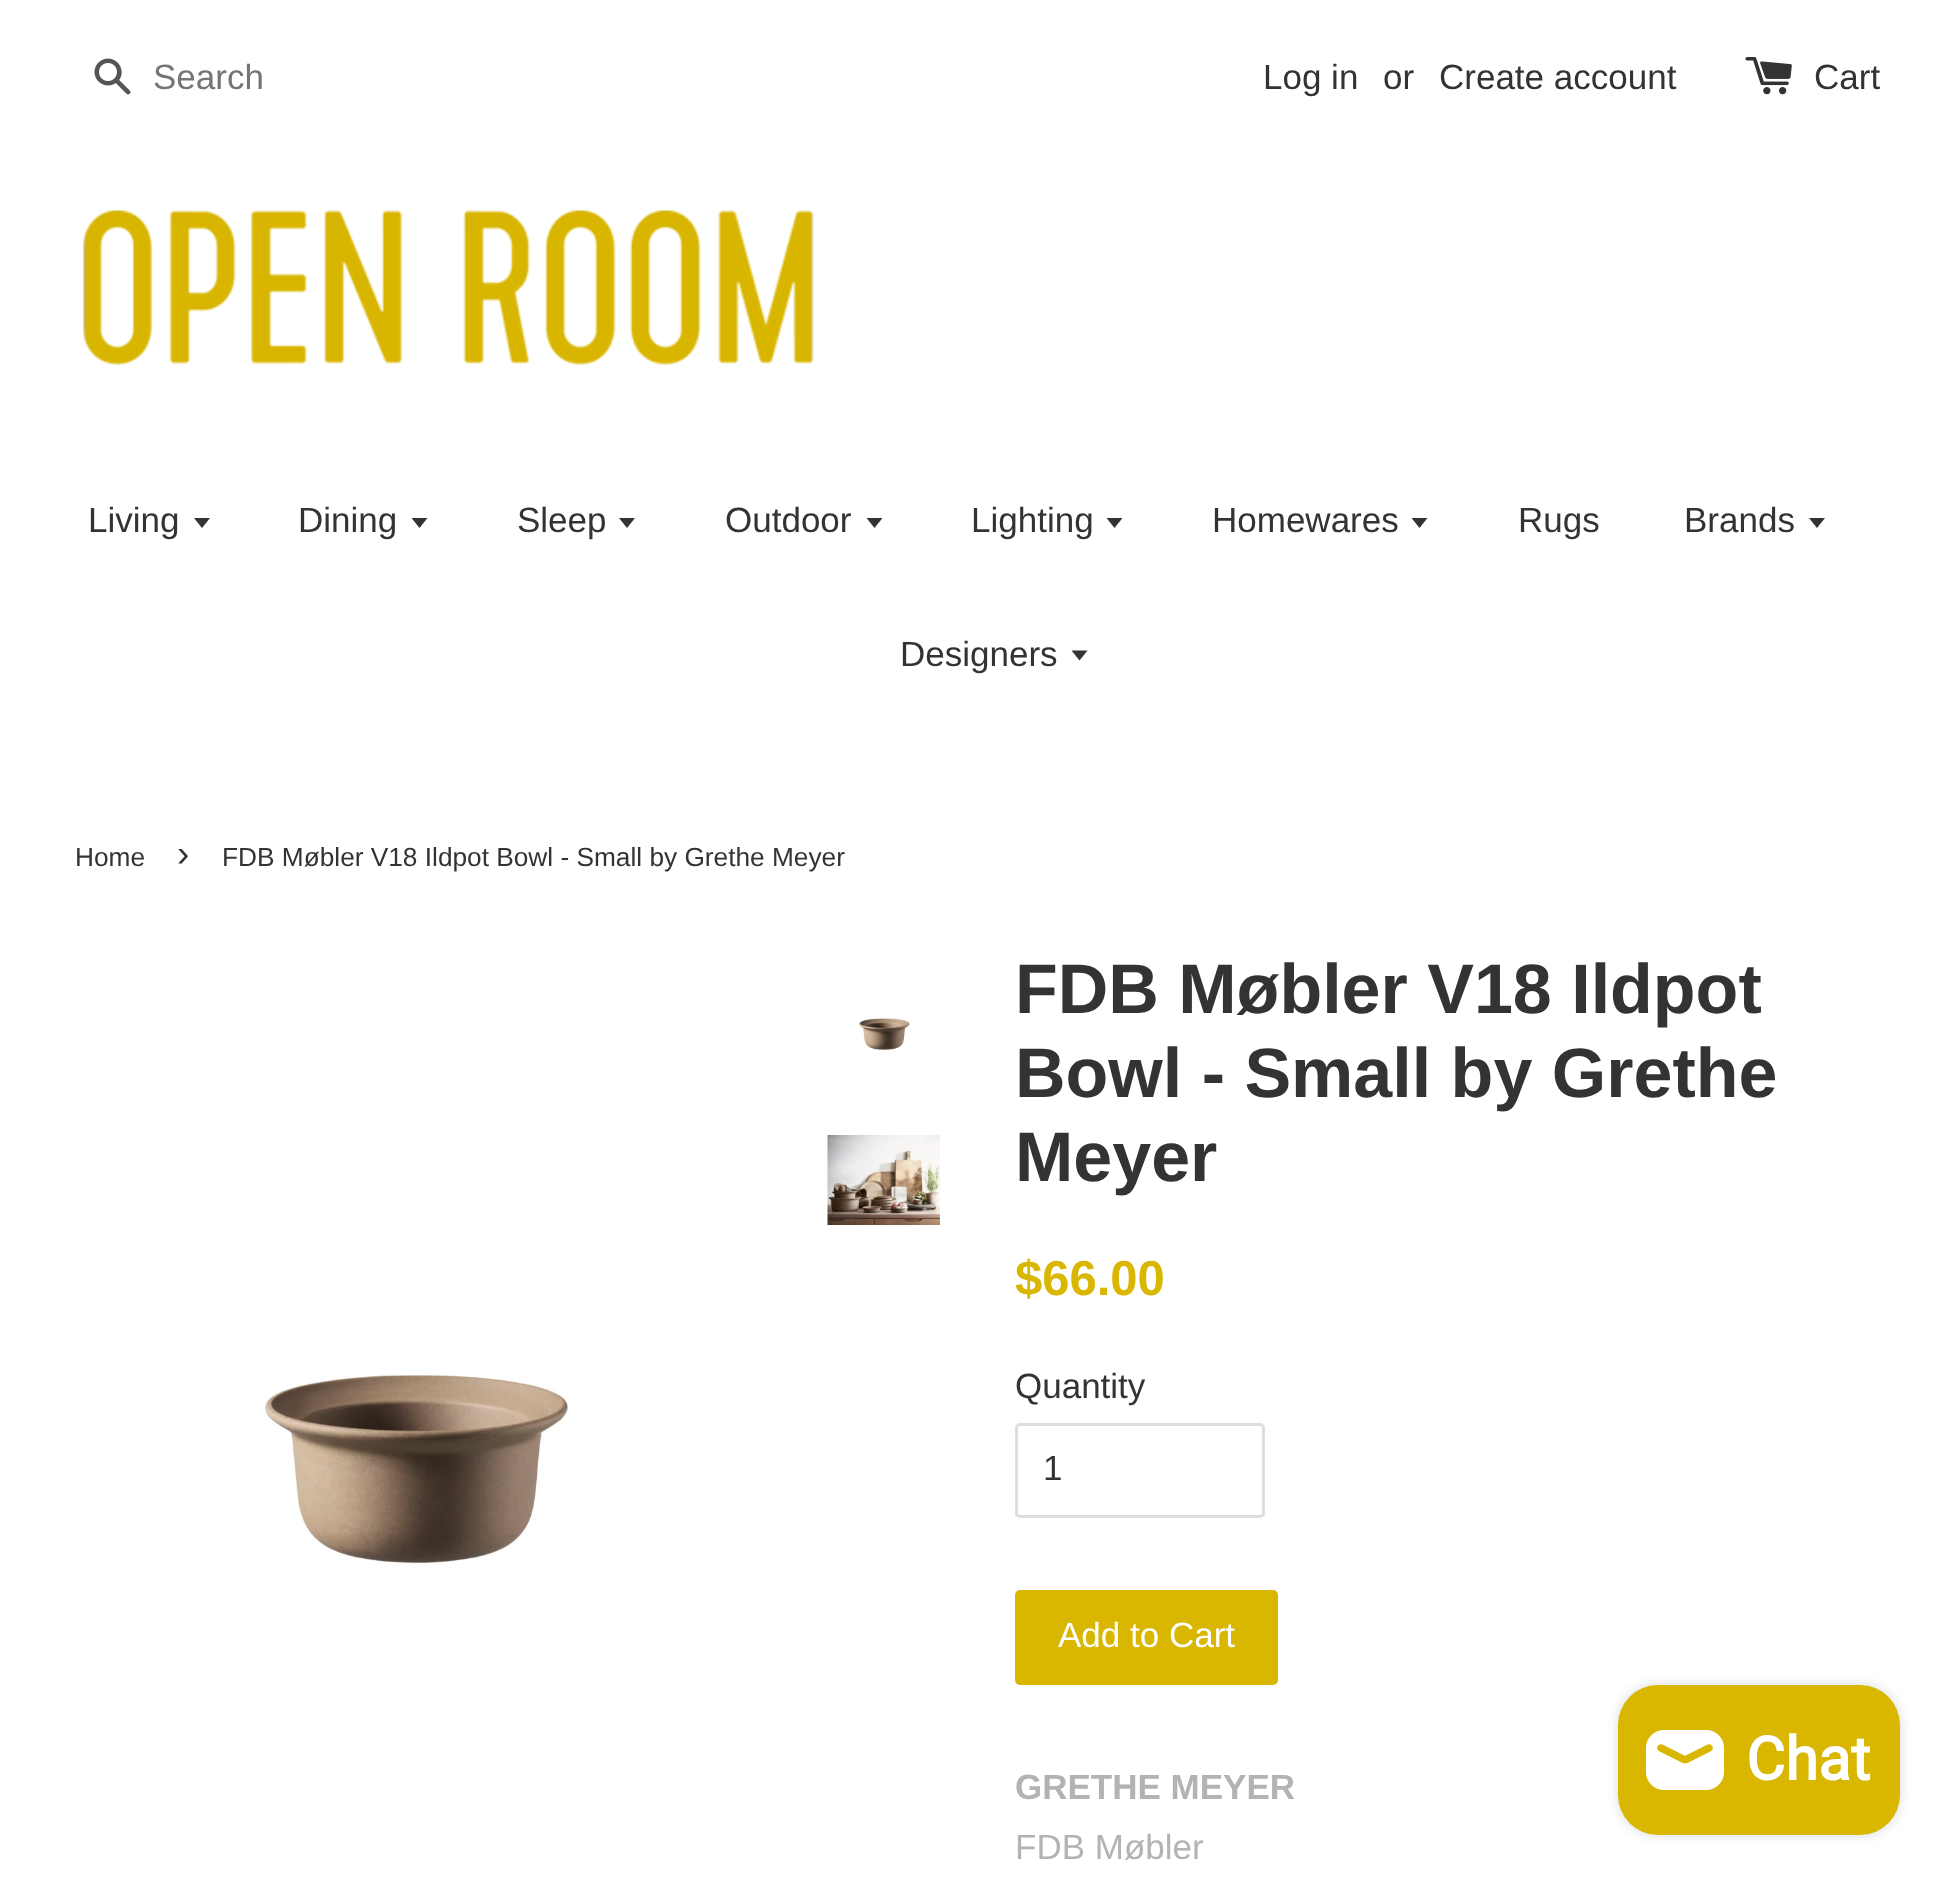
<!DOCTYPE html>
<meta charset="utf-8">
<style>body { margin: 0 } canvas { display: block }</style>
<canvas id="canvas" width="1955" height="1886"></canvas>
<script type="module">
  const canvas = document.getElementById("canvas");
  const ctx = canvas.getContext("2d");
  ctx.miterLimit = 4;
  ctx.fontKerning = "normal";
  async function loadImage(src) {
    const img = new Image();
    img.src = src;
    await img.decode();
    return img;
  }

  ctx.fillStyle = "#ffffff";
  ctx.fillRect(0, 0, 1955, 1886);
  ctx.drawImage(await loadImage("img1.png"), 94, 58, 37, 37);
  ctx.font = "35px Liberation Sans";
  ctx.fillStyle = "#757575";
  ctx.fillText("Search", 153, 89);
  ctx.fillStyle = "#333333";
  ctx.fillText("Log in", 1263, 89);
  ctx.fillText("or", 1383, 89);
  ctx.fillText("Create account", 1439, 89);
  ctx.drawImage(await loadImage("img2.png"), 1745, 57, 47, 38);
  ctx.fillText("Cart", 1814, 89);
  ctx.drawImage(await loadImage("img3.png"), 83, 210, 731, 155);
  ctx.fillText("Living", 88, 532);
  ctx.beginPath();
  ctx.moveTo(194, 518);
  ctx.lineTo(202, 528);
  ctx.lineTo(210, 518);
  ctx.closePath();
  ctx.fill();
  ctx.fillText("Dining", 298, 532);
  ctx.beginPath();
  ctx.moveTo(411.5, 518);
  ctx.lineTo(419.5, 528);
  ctx.lineTo(427.5, 518);
  ctx.closePath();
  ctx.fill();
  ctx.fillText("Sleep", 517, 532);
  ctx.beginPath();
  ctx.moveTo(619, 518);
  ctx.lineTo(627, 528);
  ctx.lineTo(635, 518);
  ctx.closePath();
  ctx.fill();
  ctx.fillText("Outdoor", 725, 532);
  ctx.beginPath();
  ctx.moveTo(866.5, 518);
  ctx.lineTo(874.5, 528);
  ctx.lineTo(882.5, 518);
  ctx.closePath();
  ctx.fill();
  ctx.fillText("Lighting", 971, 532);
  ctx.beginPath();
  ctx.moveTo(1106.5, 518);
  ctx.lineTo(1114.5, 528);
  ctx.lineTo(1122.5, 518);
  ctx.closePath();
  ctx.fill();
  ctx.fillText("Homewares", 1212, 532);
  ctx.beginPath();
  ctx.moveTo(1411.5, 518);
  ctx.lineTo(1419.5, 528);
  ctx.lineTo(1427.5, 518);
  ctx.closePath();
  ctx.fill();
  ctx.fillText("Rugs", 1518, 532);
  ctx.fillText("Brands", 1684, 532);
  ctx.beginPath();
  ctx.moveTo(1809, 518);
  ctx.lineTo(1817, 528);
  ctx.lineTo(1825, 518);
  ctx.closePath();
  ctx.fill();
  ctx.fillText("Designers", 900, 666);
  ctx.beginPath();
  ctx.moveTo(1071.5, 650.5);
  ctx.lineTo(1079.5, 660.5);
  ctx.lineTo(1087.5, 650.5);
  ctx.closePath();
  ctx.fill();
  ctx.font = "26.25px Liberation Sans";
  ctx.fillText("Home", 75, 866);
  ctx.font = "37px Liberation Sans";
  ctx.fillText("›", 177, 866);
  ctx.font = "26.25px Liberation Sans";
  ctx.fillText("FDB Møbler V18 Ildpot Bowl - Small by Grethe Meyer", 222, 866);
  ctx.drawImage(await loadImage("img4.png"), 859, 1018, 51, 33);
  ctx.drawImage(await loadImage("img5.png"), 827, 1135, 113, 90);
  ctx.drawImage(await loadImage("img6.png"), 265, 1374, 305, 191);
  ctx.font = "bold 70px Liberation Sans";
  ctx.fillText("FDB Møbler V18 Ildpot", 1015, 1013);
  ctx.fillText("Bowl - Small by Grethe", 1015, 1097);
  ctx.fillText("Meyer", 1015, 1181);
  ctx.font = "bold 49px Liberation Sans";
  ctx.fillStyle = "#d9b600";
  ctx.fillText("$66.00", 1015, 1295);
  ctx.font = "35px Liberation Sans";
  ctx.fillStyle = "#333333";
  ctx.fillText("Quantity", 1015, 1398);
  ctx.beginPath();
  ctx.roundRect(1016.5, 1424.5, 247, 92, 3.5);
  ctx.strokeStyle = "#dddddd";
  ctx.lineWidth = 3;
  ctx.stroke();
  ctx.fillText("1", 1043, 1480);
  ctx.fillStyle = "#d9b600";
  ctx.beginPath();
  ctx.roundRect(1015, 1590, 263, 95, 5);
  ctx.fill();
  ctx.fillStyle = "#ffffff";
  ctx.fillText("Add to Cart", 1058, 1647);
  ctx.font = "bold 35px Liberation Sans";
  ctx.fillStyle = "#b3b3b3";
  ctx.fillText("GRETHE MEYER", 1015, 1799);
  ctx.font = "35px Liberation Sans";
  ctx.fillText("FDB Møbler", 1015, 1859);
  ctx.fillStyle = "rgba(0, 0, 0, 0.15)";
  ctx.filter = "blur(6px)";
  ctx.beginPath();
  ctx.roundRect(1618, 1685, 282, 150, 40);
  ctx.fill();
  ctx.filter = "none";
  ctx.fillStyle = "#d9b600";
  ctx.beginPath();
  ctx.roundRect(1618, 1685, 282, 150, 40);
  ctx.fill();
  ctx.drawImage(await loadImage("img7.png"), 1646, 1730, 78, 60);
  ctx.font = "bold 60px Roboto";
  ctx.fillStyle = "#ffffff";
  ctx.fillText("Chat", 1746, 1780);
</script>
